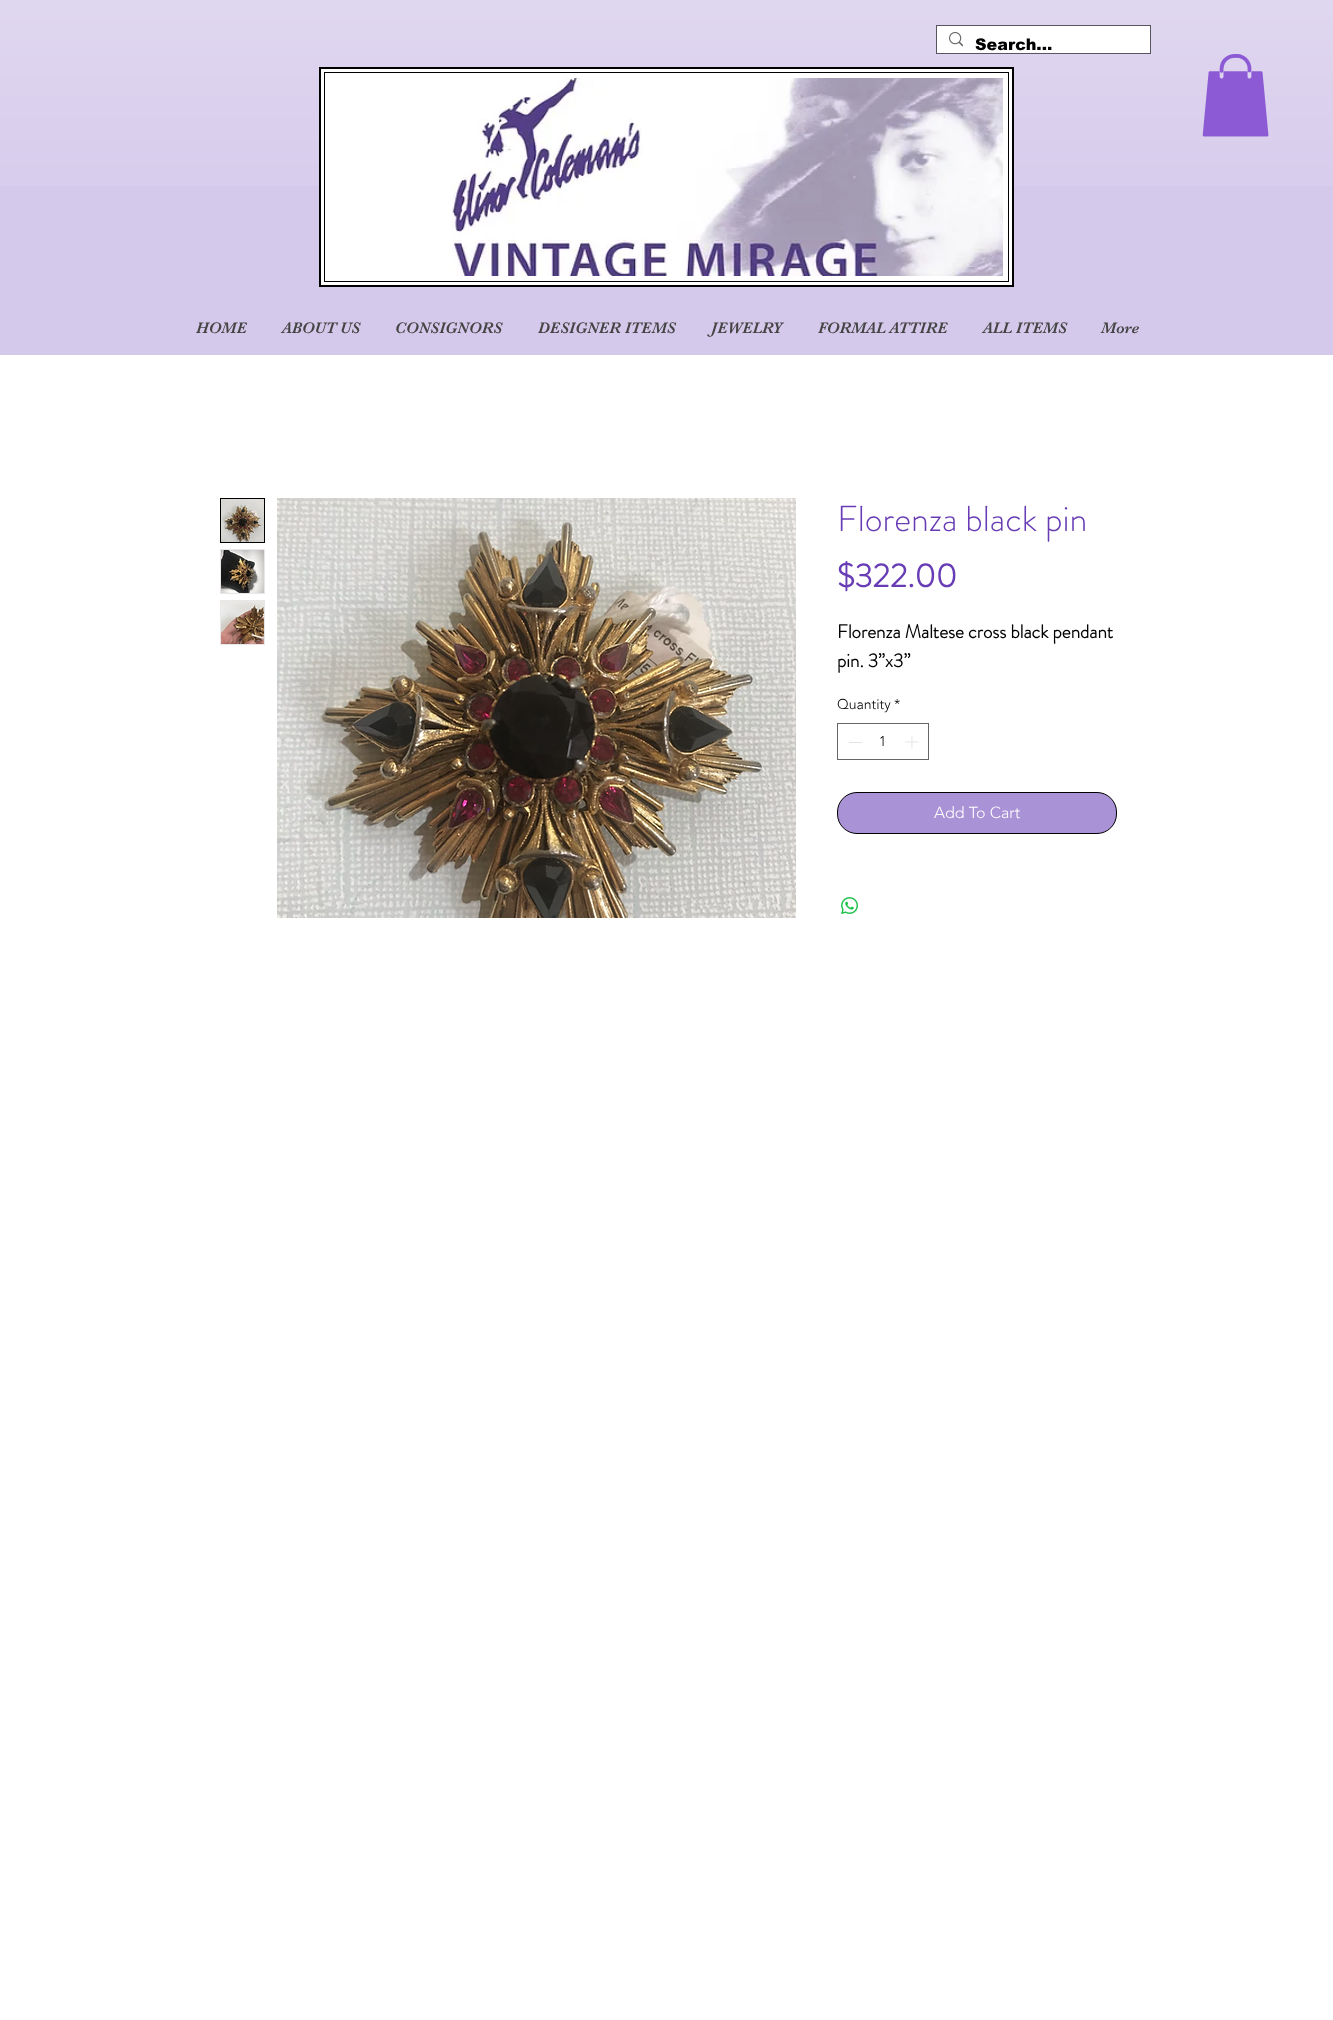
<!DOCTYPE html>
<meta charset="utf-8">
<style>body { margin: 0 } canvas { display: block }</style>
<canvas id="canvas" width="1333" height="2020"></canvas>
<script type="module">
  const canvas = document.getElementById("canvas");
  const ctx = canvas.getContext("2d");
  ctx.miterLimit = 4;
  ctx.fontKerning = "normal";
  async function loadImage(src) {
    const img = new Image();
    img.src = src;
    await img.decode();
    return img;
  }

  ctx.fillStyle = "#ffffff";
  ctx.fillRect(0, 0, 1333, 2020);
  ctx.fillStyle = "#d5c9eb";
  ctx.fillRect(0, 0, 1333, 355);
  ctx.drawImage(await loadImage("img1.png"), 0, 0, 1333, 186);
  ctx.strokeStyle = "#595560";
  ctx.strokeRect(936.5, 25.5, 214, 28);
  ctx.fillStyle = "#ffffff";
  ctx.fillRect(937, 26, 213, 27);
  ctx.drawImage(await loadImage("img2.png"), 949, 32, 14, 15);
  ctx.font = "900 16px arial";
  ctx.fillStyle = "#000000";
  ctx.fillText("Search...", 975, 50);
  ctx.fillStyle = "#ffffff";
  ctx.beginPath();
  ctx.rect(320, 68, 693, 218);
  ctx.fill();
  ctx.strokeStyle = "#000000";
  ctx.lineWidth = 2;
  ctx.stroke();
  ctx.drawImage(await loadImage("img3.png"), 452, 78, 551, 198);
  ctx.lineWidth = 1;
  ctx.strokeRect(324.5, 72.5, 684, 209);
  ctx.drawImage(await loadImage("img4.png"), 1202, 54, 67, 83);
  ctx.font = "16px 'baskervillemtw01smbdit'";
  ctx.fillStyle = "#444444";
  ctx.fillText("HOME", 196, 333);
  ctx.fillText("ABOUT US", 282, 333);
  ctx.fillText("CONSIGNORS", 395, 333);
  ctx.fillText("DESIGNER ITEMS", 538, 333);
  ctx.fillText("JEWELRY", 711, 333);
  ctx.fillText("FORMAL ATTIRE", 818, 333);
  ctx.fillText("ALL ITEMS", 983, 333);
  ctx.fillText("More", 1101, 333);
  ctx.strokeRect(220.5, 498.5, 44, 44);
  ctx.drawImage(await loadImage("img5.png"), 221, 499, 43, 43);
  ctx.strokeStyle = "#e8e6e6";
  ctx.strokeRect(220.5, 549.5, 44, 44);
  ctx.drawImage(await loadImage("img6.png"), 221, 550, 43, 43);
  ctx.strokeRect(220.5, 600.5, 44, 44);
  ctx.drawImage(await loadImage("img7.png"), 221, 601, 43, 43);
  ctx.drawImage(await loadImage("img8.png"), 277, 498, 519, 420);
  ctx.font = "300 36px 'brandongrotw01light'";
  ctx.fillStyle = "#683cb5";
  ctx.fillText("Florenza black pin", 837, 531);
  ctx.font = "bold 33px 'brandongrotw01light'";
  ctx.fillText("$322.00", 837, 587);
  ctx.font = "bold 19px 'brandongrotw01light'";
  ctx.fillStyle = "#000000";
  ctx.fillText("Florenza Maltese cross black pendant", 837, 638);
  ctx.fillText("pin. 3”x3”", 837, 667);
  ctx.font = "300 14px 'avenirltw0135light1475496'";
  ctx.fillText("Quantity", 837, 709);
  ctx.fillText("*", 894, 709);
  ctx.strokeStyle = "#666666";
  ctx.strokeRect(837.5, 723.5, 91, 36);
  ctx.fillStyle = "#e3e3e3";
  ctx.fillRect(849, 742, 13, 1);
  ctx.fillStyle = "#000000";
  ctx.fillText("1", 879, 746);
  ctx.drawImage(await loadImage("img9.png"), 905, 735, 14, 14);
  ctx.fillStyle = "#aa92d6";
  ctx.beginPath();
  ctx.roundRect(837.5, 792.5, 279, 41, 19.5);
  ctx.fill();
  ctx.strokeStyle = "#000000";
  ctx.stroke();
  ctx.font = "300 16px 'avenirltw0135light1475496'";
  ctx.fillStyle = "#ffffff";
  ctx.fillText("Add To Cart", 934, 818);
  ctx.drawImage(await loadImage("img10.png"), 841, 897, 17, 17);
</script>
